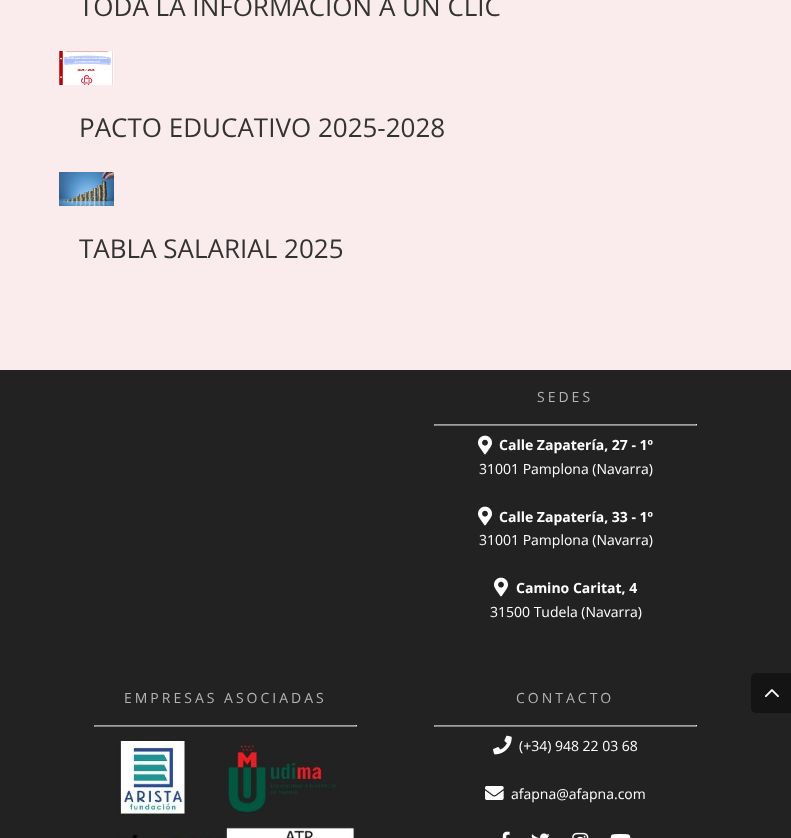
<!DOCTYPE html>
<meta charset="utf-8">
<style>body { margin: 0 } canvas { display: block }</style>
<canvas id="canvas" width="791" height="838"></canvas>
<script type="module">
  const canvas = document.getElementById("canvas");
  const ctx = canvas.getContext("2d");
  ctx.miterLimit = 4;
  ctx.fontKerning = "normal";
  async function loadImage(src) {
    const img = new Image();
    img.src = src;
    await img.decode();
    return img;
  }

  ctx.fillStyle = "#222222";
  ctx.fillRect(0, 0, 791, 838);
  ctx.fillStyle = "#faebec";
  ctx.fillRect(0, 0, 791, 370);
  ctx.font = "26px Open Sans";
  ctx.fillStyle = "#333333";
  ctx.fillText("TODA LA INFORMACIÓN A UN CLIC", 79, 16);
  ctx.drawImage(await loadImage("img1.png"), 59, 51, 55, 34);
  ctx.fillText("PACTO EDUCATIVO 2025-2028", 79, 137);
  ctx.drawImage(await loadImage("img2.png"), 59, 172, 55, 34);
  ctx.fillText("TABLA SALARIAL 2025", 79, 258);
  ctx.letterSpacing = "3px";
  ctx.font = "14px Open Sans";
  ctx.fillStyle = "#b5b5b5";
  ctx.fillText("SEDES", 537, 402);
  ctx.fillStyle = "#9f9f9f";
  ctx.fillRect(434, 424, 263, 1);
  ctx.fillStyle = "#eeeeee";
  ctx.fillRect(696, 424, 1, 2);
  ctx.fillStyle = "#808080";
  ctx.fillRect(434, 425, 263, 1);
  ctx.fillStyle = "#9f9f9f";
  ctx.fillRect(434, 424, 1, 2);
  ctx.drawImage(await loadImage("img3.png"), 478, 435, 14, 20);
  ctx.letterSpacing = "0px";
  ctx.font = "bold 14px Open Sans";
  ctx.fillStyle = "#ffffff";
  ctx.fillText("Calle Zapatería, 27 - 1º", 499, 450);
  ctx.font = "14px Open Sans";
  ctx.fillText("31001 Pamplona (Navarra)", 479, 474);
  ctx.drawImage(await loadImage("img3.png"), 478, 506, 14, 20);
  ctx.font = "bold 14px Open Sans";
  ctx.fillText("Calle Zapatería, 33 - 1º", 499, 522);
  ctx.font = "14px Open Sans";
  ctx.fillText("31001 Pamplona (Navarra)", 479, 545);
  ctx.drawImage(await loadImage("img3.png"), 494, 577, 14, 20);
  ctx.font = "bold 14px Open Sans";
  ctx.fillText("Camino Caritat, 4", 516, 593);
  ctx.font = "14px Open Sans";
  ctx.fillText("31500 Tudela (Navarra)", 490, 617);
  ctx.letterSpacing = "3px";
  ctx.fillStyle = "#b5b5b5";
  ctx.fillText("EMPRESAS ASOCIADAS", 124, 703);
  ctx.fillStyle = "#9f9f9f";
  ctx.fillRect(94, 725, 263, 1);
  ctx.fillStyle = "#eeeeee";
  ctx.fillRect(356, 725, 1, 2);
  ctx.fillStyle = "#808080";
  ctx.fillRect(94, 726, 263, 1);
  ctx.fillStyle = "#9f9f9f";
  ctx.fillRect(94, 725, 1, 2);
  ctx.drawImage(await loadImage("img4.png"), 117, 740, 238, 98);
  ctx.fillStyle = "#b5b5b5";
  ctx.fillText("CONTACTO", 516, 703);
  ctx.fillStyle = "#9f9f9f";
  ctx.fillRect(434, 725, 263, 1);
  ctx.fillStyle = "#eeeeee";
  ctx.fillRect(696, 725, 1, 2);
  ctx.fillStyle = "#808080";
  ctx.fillRect(434, 726, 263, 1);
  ctx.fillStyle = "#9f9f9f";
  ctx.fillRect(434, 725, 1, 2);
  ctx.drawImage(await loadImage("img5.png"), 493, 735, 19, 20);
  ctx.letterSpacing = "0px";
  ctx.fillStyle = "#ffffff";
  ctx.fillText("(+34) 948 22 03 68", 519, 751);
  ctx.drawImage(await loadImage("img6.png"), 485, 786, 19, 14);
  ctx.fillText("afapna@afapna.com", 511, 799);
  ctx.drawImage(await loadImage("img7.png"), 502, 831, 8, 7);
  ctx.drawImage(await loadImage("img8.png"), 531, 833, 19, 5);
  ctx.drawImage(await loadImage("img9.png"), 572, 832, 17, 6);
  ctx.drawImage(await loadImage("img10.png"), 610, 834, 21, 4);
  ctx.fillStyle = "#141414";
  ctx.beginPath();
  ctx.roundRect(751, 673, 40, 40, [5, 0, 0, 5]);
  ctx.fill();
  ctx.drawImage(await loadImage("img11.png"), 764, 689, 15, 9);
</script>
